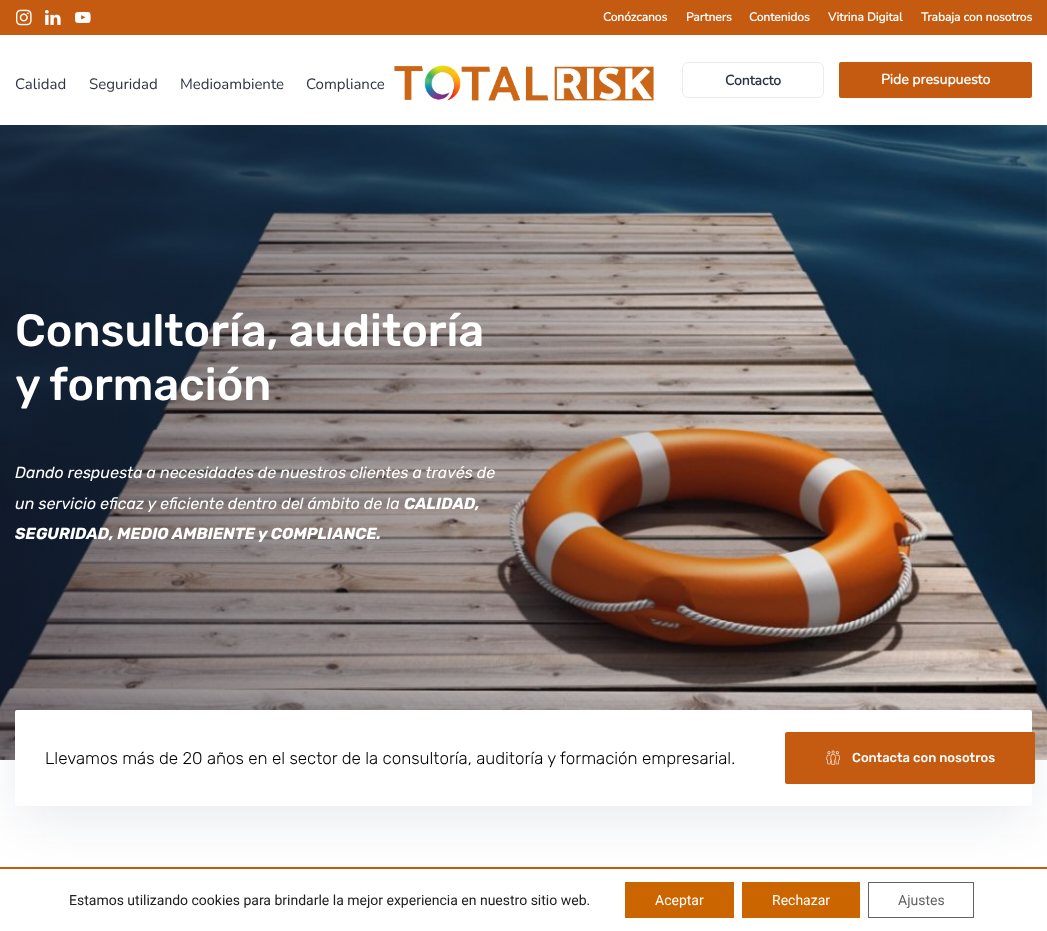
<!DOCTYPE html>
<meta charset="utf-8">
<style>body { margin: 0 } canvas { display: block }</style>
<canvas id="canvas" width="1047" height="931"></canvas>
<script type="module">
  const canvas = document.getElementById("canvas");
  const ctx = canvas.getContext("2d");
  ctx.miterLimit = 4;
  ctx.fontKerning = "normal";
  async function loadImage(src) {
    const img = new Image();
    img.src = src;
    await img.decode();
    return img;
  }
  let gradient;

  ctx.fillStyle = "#ffffff";
  ctx.fillRect(0, 0, 1047, 931);
  ctx.fillStyle = "#c55a11";
  ctx.fillRect(0, 0, 1047, 35);
  ctx.drawImage(await loadImage("img1.png"), 16, 9, 16, 17);
  ctx.drawImage(await loadImage("img2.png"), 45, 10, 16, 15);
  ctx.drawImage(await loadImage("img3.png"), 75, 11, 16, 12);
  ctx.font = "bold 12px Nunito";
  ctx.fillStyle = "#ffffff";
  ctx.fillText("Conózcanos", 603, 21);
  ctx.fillText("Partners", 686, 21);
  ctx.fillText("Contenidos", 749, 21);
  ctx.fillText("Vitrina Digital", 828, 21);
  ctx.fillText("Trabaja con nosotros", 921, 21);
  ctx.font = "200 15px Nunito";
  ctx.fillStyle = "#2d3543";
  ctx.fillText("Calidad", 15, 89);
  ctx.fillText("Seguridad", 89, 89);
  ctx.fillText("Medioambiente", 180, 89);
  ctx.fillText("Compliance", 306, 89);
  ctx.drawImage(await loadImage("img4.png"), 394, 65, 260, 36);
  ctx.beginPath();
  ctx.roundRect(682.5, 62.5, 141, 35, 5.5);
  ctx.strokeStyle = "#ebebf5";
  ctx.stroke();
  ctx.font = "bold 14px Nunito";
  ctx.fillText("Contacto", 725, 85);
  ctx.fillStyle = "#c55a11";
  ctx.beginPath();
  ctx.roundRect(839, 62, 193, 36, 2);
  ctx.fill();
  ctx.fillStyle = "#ffffff";
  ctx.fillText("Pide presupuesto", 881, 84);
  ctx.drawImage(await loadImage("img5.png"), 0, 125, 1047, 635);
  gradient = ctx.createLinearGradient(0, 410, 1047, 410);
  gradient.addColorStop(0, "rgba(21, 20, 36, 0.5)");
  gradient.addColorStop(1, "rgba(21, 20, 36, 0)");
  ctx.fillStyle = gradient;
  ctx.fillRect(0, 125, 1002, 635);
  ctx.font = "500 45px Rubik";
  ctx.fillStyle = "#ffffff";
  ctx.fillText("Consultoría, auditoría", 15, 346);
  ctx.fillText("y formación", 15, 400);
  ctx.font = "italic 16px Rubik";
  ctx.fillText("Dando respuesta a necesidades de nuestros clientes a través de", 15, 478);
  ctx.fillText("un servicio eficaz y eficiente dentro del ámbito de la", 15, 509);
  ctx.font = "italic bold 16px Rubik";
  ctx.fillText("CALIDAD,", 404, 509);
  ctx.fillText("SEGURIDAD, MEDIO AMBIENTE y COMPLIANCE.", 15, 539);
  ctx.fillStyle = "rgba(9, 31, 67, 0.1)";
  ctx.filter = "blur(27.5px)";
  ctx.beginPath();
  ctx.rect(20, 730, 1007, 86);
  ctx.fill();
  ctx.filter = "none";
  ctx.fillStyle = "#ffffff";
  ctx.beginPath();
  ctx.roundRect(15, 710, 1017, 96, 2);
  ctx.fill();
  ctx.font = "300 17px Rubik";
  ctx.fillStyle = "#000000";
  ctx.fillText("Llevamos más de 20 años en el sector de la consultoría, auditoría y formación empresarial.", 45, 764);
  ctx.fillStyle = "#c55a11";
  ctx.beginPath();
  ctx.roundRect(785, 732, 250, 52, 2);
  ctx.fill();
  ctx.drawImage(await loadImage("img6.png"), 826, 750, 14, 15);
  ctx.font = "500 13px Rubik";
  ctx.fillStyle = "#ffffff";
  ctx.fillText("Contacta con nosotros", 852, 762);
  ctx.fillStyle = "#c55a11";
  ctx.fillRect(0, 867, 1047, 2);
  ctx.font = "14px Roboto";
  ctx.fillStyle = "#202020";
  ctx.fillText("Estamos utilizando cookies para brindarle la mejor experiencia en nuestro sitio web.", 69, 905);
  ctx.fillStyle = "#ca6500";
  ctx.fillRect(625, 882, 109, 36);
  ctx.fillStyle = "#ffffff";
  ctx.fillText("Aceptar", 655, 905);
  ctx.fillStyle = "#ca6500";
  ctx.fillRect(742, 882, 118, 36);
  ctx.fillStyle = "#ffffff";
  ctx.fillText("Rechazar", 772, 905);
  ctx.strokeStyle = "#636363";
  ctx.strokeRect(868.5, 882.5, 105, 35);
  ctx.fillStyle = "#636363";
  ctx.fillText("Ajustes", 898, 905);
</script>
